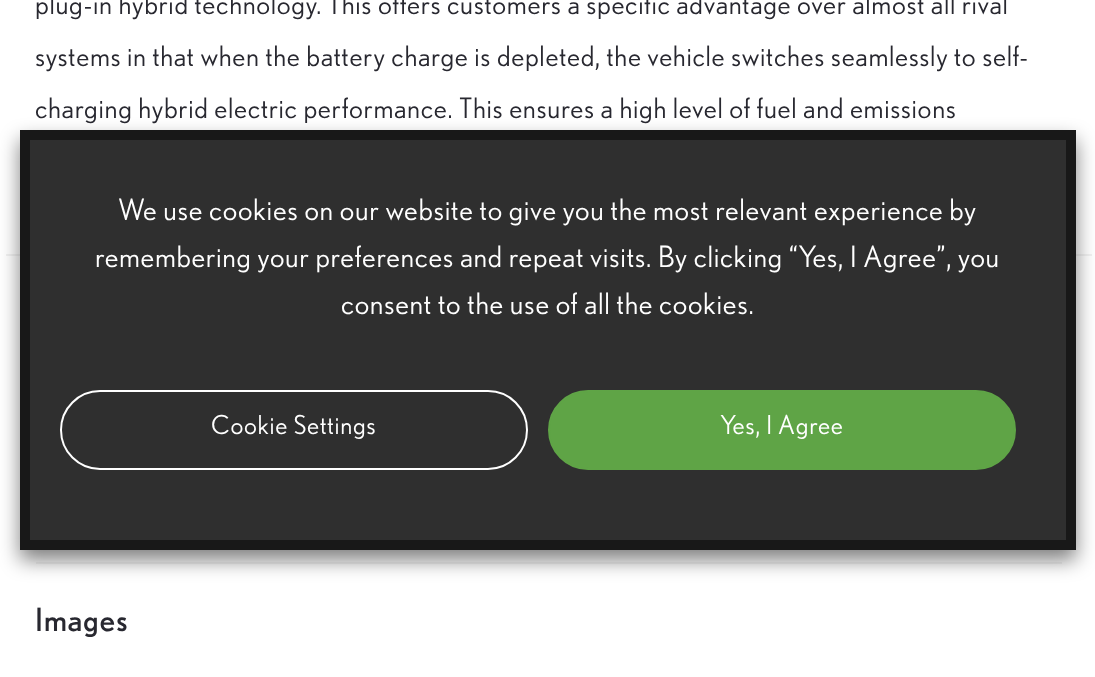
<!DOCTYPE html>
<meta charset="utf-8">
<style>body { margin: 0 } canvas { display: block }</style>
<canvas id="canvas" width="1095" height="677"></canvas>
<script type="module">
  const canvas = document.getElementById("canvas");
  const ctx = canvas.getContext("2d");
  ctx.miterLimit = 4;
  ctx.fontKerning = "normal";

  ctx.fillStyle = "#ffffff";
  ctx.fillRect(0, 0, 1095, 677);
  ctx.fillStyle = "#f2f2f2";
  ctx.fillRect(6, 254, 1086, 2);
  ctx.letterSpacing = "0.7px";
  ctx.font = "28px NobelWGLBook";
  ctx.fillStyle = "#282830";
  ctx.fillText("plug-in hybrid technology. This offers customers a specific advantage over almost all rival", 35, 14);
  ctx.fillText("systems in that when the battery charge is depleted, the vehicle switches seamlessly to self-", 35, 66);
  ctx.fillText("charging hybrid electric performance. This ensures a high level of fuel and emissions", 35, 118);
  ctx.fillStyle = "#f4f4f4";
  ctx.fillRect(36, 562, 1026, 2);
  ctx.font = "32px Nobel";
  ctx.fillStyle = "#282830";
  ctx.fillText("Images", 35, 631);
  ctx.fillStyle = "rgba(0, 0, 0, 0.5)";
  ctx.filter = "blur(10px)";
  ctx.beginPath();
  ctx.rect(20, 140, 1056, 420);
  ctx.fill();
  ctx.filter = "none";
  ctx.fillStyle = "#2f2f2f";
  ctx.beginPath();
  ctx.rect(25, 135, 1046, 410);
  ctx.fill();
  ctx.strokeStyle = "#181818";
  ctx.lineWidth = 10;
  ctx.stroke();
  ctx.font = "29.3px NobelWGLBook";
  ctx.fillStyle = "#ffffff";
  ctx.fillText("We use cookies on our website to give you the most relevant experience by", 118, 220);
  ctx.fillText("remembering your preferences and repeat visits. By clicking “Yes, I Agree”, you", 95, 267);
  ctx.fillText("consent to the use of all the cookies.", 341, 314);
  ctx.beginPath();
  ctx.roundRect(61, 391, 466, 78, 39);
  ctx.strokeStyle = "#ffffff";
  ctx.lineWidth = 2;
  ctx.stroke();
  ctx.font = "26px NobelWGLBook";
  ctx.fillText("Cookie Settings", 211, 434);
  ctx.fillStyle = "#5fa446";
  ctx.beginPath();
  ctx.roundRect(549, 391, 466, 78, 39);
  ctx.fill();
  ctx.strokeStyle = "#5fa446";
  ctx.stroke();
  ctx.fillStyle = "#ffffff";
  ctx.fillText("Yes, I Agree", 720, 434);
</script>
